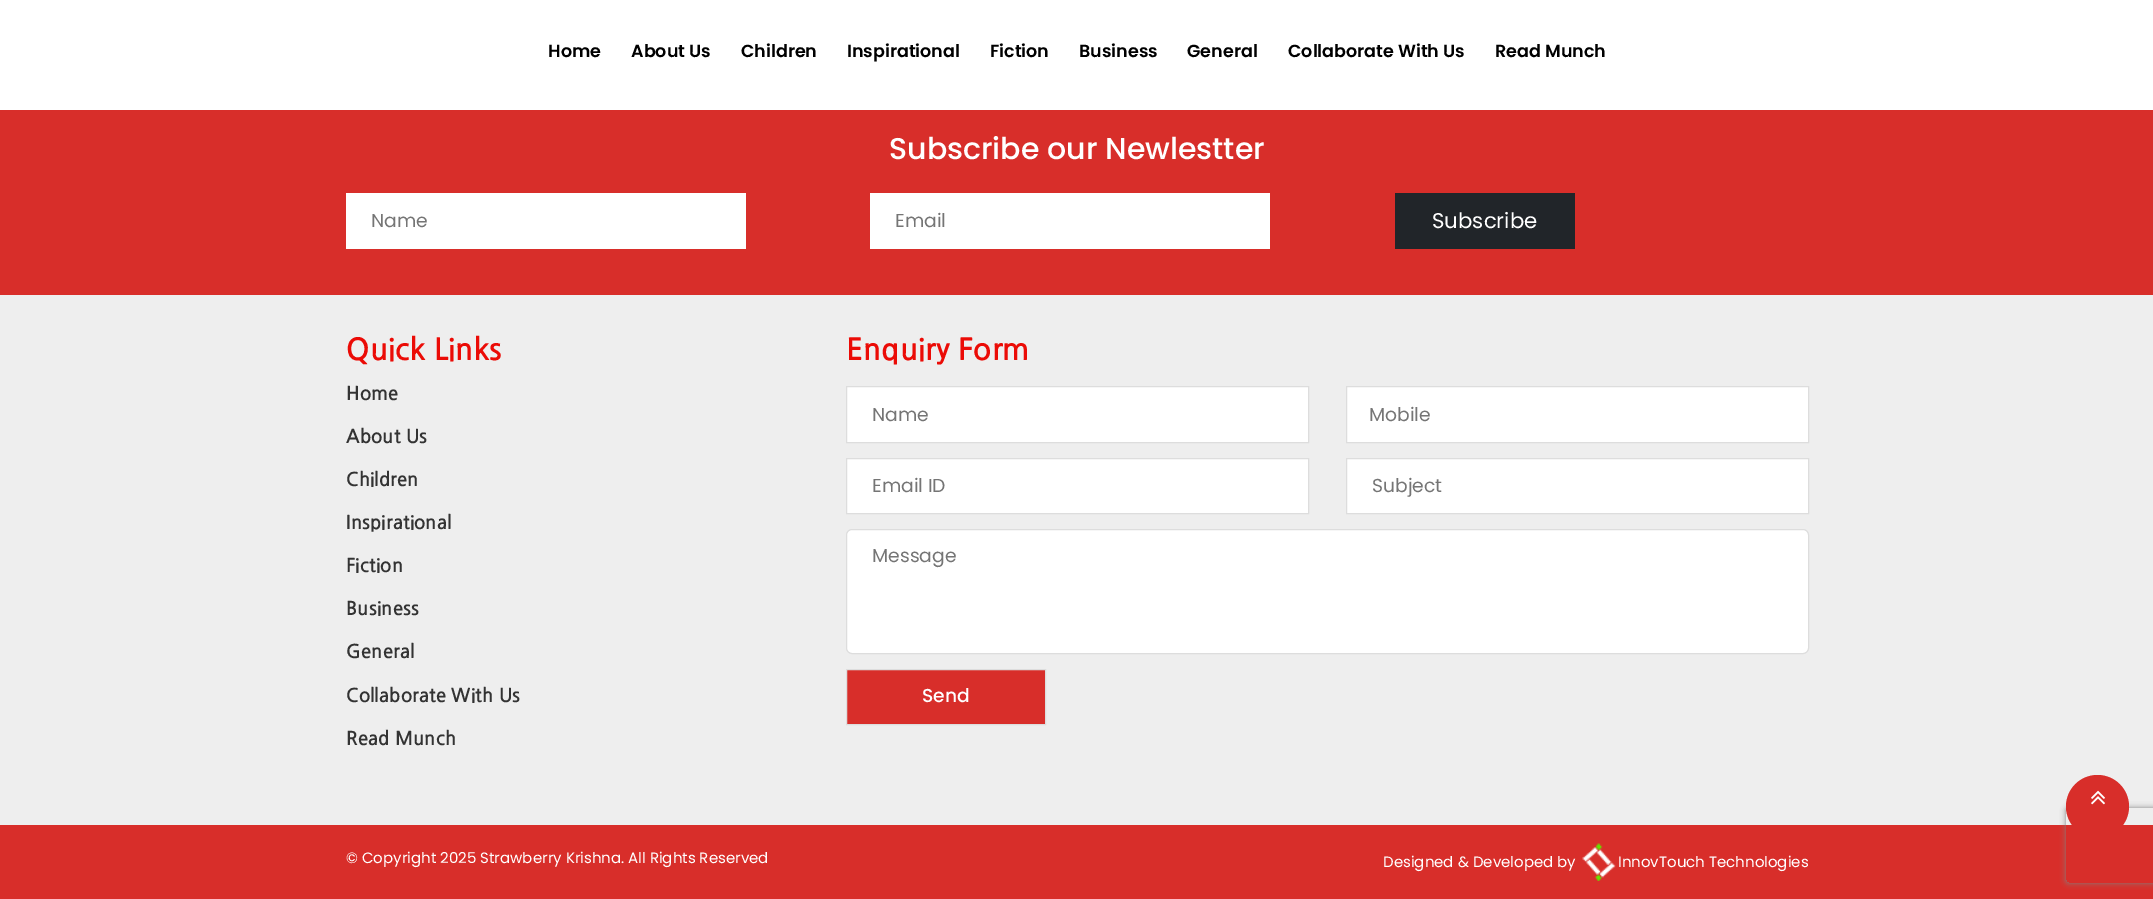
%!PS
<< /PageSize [2153 899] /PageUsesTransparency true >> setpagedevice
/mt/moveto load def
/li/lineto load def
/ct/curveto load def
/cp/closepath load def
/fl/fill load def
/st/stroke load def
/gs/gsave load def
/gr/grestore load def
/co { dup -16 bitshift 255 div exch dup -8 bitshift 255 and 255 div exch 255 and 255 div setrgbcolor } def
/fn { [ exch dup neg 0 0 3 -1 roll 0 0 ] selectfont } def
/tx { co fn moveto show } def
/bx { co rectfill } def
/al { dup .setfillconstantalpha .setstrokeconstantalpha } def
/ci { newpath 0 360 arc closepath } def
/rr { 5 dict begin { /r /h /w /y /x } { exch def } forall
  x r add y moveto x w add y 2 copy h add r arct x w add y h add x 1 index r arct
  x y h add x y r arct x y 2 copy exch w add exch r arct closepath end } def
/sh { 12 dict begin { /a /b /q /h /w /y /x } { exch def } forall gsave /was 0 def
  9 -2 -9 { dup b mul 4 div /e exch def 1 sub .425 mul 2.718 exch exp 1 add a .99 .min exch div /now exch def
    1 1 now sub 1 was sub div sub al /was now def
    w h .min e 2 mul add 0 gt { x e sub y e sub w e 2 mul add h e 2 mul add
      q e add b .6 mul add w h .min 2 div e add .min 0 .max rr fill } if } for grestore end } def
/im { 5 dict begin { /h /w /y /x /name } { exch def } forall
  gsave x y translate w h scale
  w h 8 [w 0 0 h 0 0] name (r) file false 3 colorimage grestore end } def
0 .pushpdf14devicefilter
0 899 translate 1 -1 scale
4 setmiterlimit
0 0 2153 899 16#FFFFFF bx
0 110 2153 185 16#D82E2A bx
346 193 400 56 16#FFFFFF bx
870 193 400 56 16#FFFFFF bx
1395 193 180 56 16#212529 bx
0 295 2153 530 16#EEEEEE bx
16#FFFFFF co
846.5 386.5 mt 1308.5 386.5 li 1308.5 442.5 li 846.5 442.5 li cp gs fl gr
16#DDDDDD co
st
16#FFFFFF co
846.5 458.5 mt 1308.5 458.5 li 1308.5 513.5 li 846.5 513.5 li cp gs fl gr
16#DDDDDD co
st
16#FFFFFF co
1346.5 386.5 mt 1808.5 386.5 li 1808.5 442.5 li 1346.5 442.5 li cp gs fl gr
16#DDDDDD co
st
16#FFFFFF co
1346.5 458.5 mt 1808.5 458.5 li 1808.5 513.5 li 1346.5 513.5 li cp gs fl gr
16#DDDDDD co
st
16#FFFFFF co
846.5 529.5 962 124 5.5 rr gs fl gr
16#DDDDDD co
st
16#D82E2A co
846.5 669.5 mt 1045.5 669.5 li 1045.5 724.5 li 846.5 724.5 li cp gs fl gr
16#DDDDDD co
st
0 825 2153 74 16#D82E2A bx
(media/1.raw) 1582 843 34 38 im
gs
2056 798 mt 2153 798 li 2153 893 li 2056 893 li cp 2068.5 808 mt 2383.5 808 li 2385 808 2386 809 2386 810.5 ct 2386 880.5 li 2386 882 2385 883 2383.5 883 ct 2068.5 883 li 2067 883 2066 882 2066 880.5 ct 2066 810.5 li 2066 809 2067 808 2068.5 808 ct cp eoclip newpath
16#808080 co
2066 808 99 75 2.5 3 1 sh
gr
2097.5 806.5 31.5 ci fl
(media/2.raw) 2091 790 14 15 im
(Home) 548 57 /Poppins-SemiBold 17.5 16#000000 tx
(About Us) 631 57 /Poppins-SemiBold 17.5 16#000000 tx
(Children) 741 57 /Poppins-SemiBold 17.5 16#000000 tx
(Inspirational) 847 57 /Poppins-SemiBold 17.5 16#000000 tx
(Fiction) 990 57 /Poppins-SemiBold 17.5 16#000000 tx
(Business) 1079 57 /Poppins-SemiBold 17.5 16#000000 tx
(General) 1187 57 /Poppins-SemiBold 17.5 16#000000 tx
(Collaborate With Us) 1288 57 /Poppins-SemiBold 17.5 16#000000 tx
(Read Munch) 1495 57 /Poppins-SemiBold 17.5 16#000000 tx
(Subscribe our Newlestter) 889 159 /Poppins-Medium 30 16#FFFFFF tx
(Name) 371 227 /Poppins-Regular 18.75 16#757575 tx
(Email) 895 227 /Poppins-Regular 18.75 16#757575 tx
(Subscribe) 1432 228 /Poppins-Regular 21.25 16#FFFFFF tx
(Quick Links) 346 360 /NanumGothic-Bold 30 16#EB0B06 tx
(Home) 346 400 /NanumGothic-Bold 18.75 16#333333 tx
(About Us) 346 443 /NanumGothic-Bold 18.75 16#333333 tx
(Children) 346 486 /NanumGothic-Bold 18.75 16#333333 tx
(Inspirational) 346 529 /NanumGothic-Bold 18.75 16#333333 tx
(Fiction) 346 572 /NanumGothic-Bold 18.75 16#333333 tx
(Business) 346 615 /NanumGothic-Bold 18.75 16#333333 tx
(General) 346 658 /NanumGothic-Bold 18.75 16#333333 tx
(Collaborate With Us) 346 702 /NanumGothic-Bold 18.75 16#333333 tx
(Read Munch) 346 745 /NanumGothic-Bold 18.75 16#333333 tx
(Enquiry Form) 846 360 /NanumGothic-Bold 30 16#EB0B06 tx
(Name) 872 421 /Poppins-Regular 18.75 16#757575 tx
(Email ID) 872 492 /Poppins-Regular 18.75 16#757575 tx
(Mobile) 1369 421 /Poppins-Regular 18.75 16#757575 tx
(Subject) 1372 492 /Poppins-Regular 18.75 16#757575 tx
(Message) 872 562 /Poppins-Regular 18.75 16#757575 tx
(Send) 922 702 /Poppins-Medium 18.75 16#FFFFFF tx
(© Copyright 2025 Strawberry Krishna. All Rights Reserved) 346 863 /Poppins-Regular 15 16#FFFFFF tx
(Designed & Developed by) 1383 867 /Poppins-Regular 15 16#FFFFFF tx
(InnovTouch Technologies) 1618 867 /Poppins-Regular 15 16#FFFFFF tx
.poppdf14devicefilter showpage
